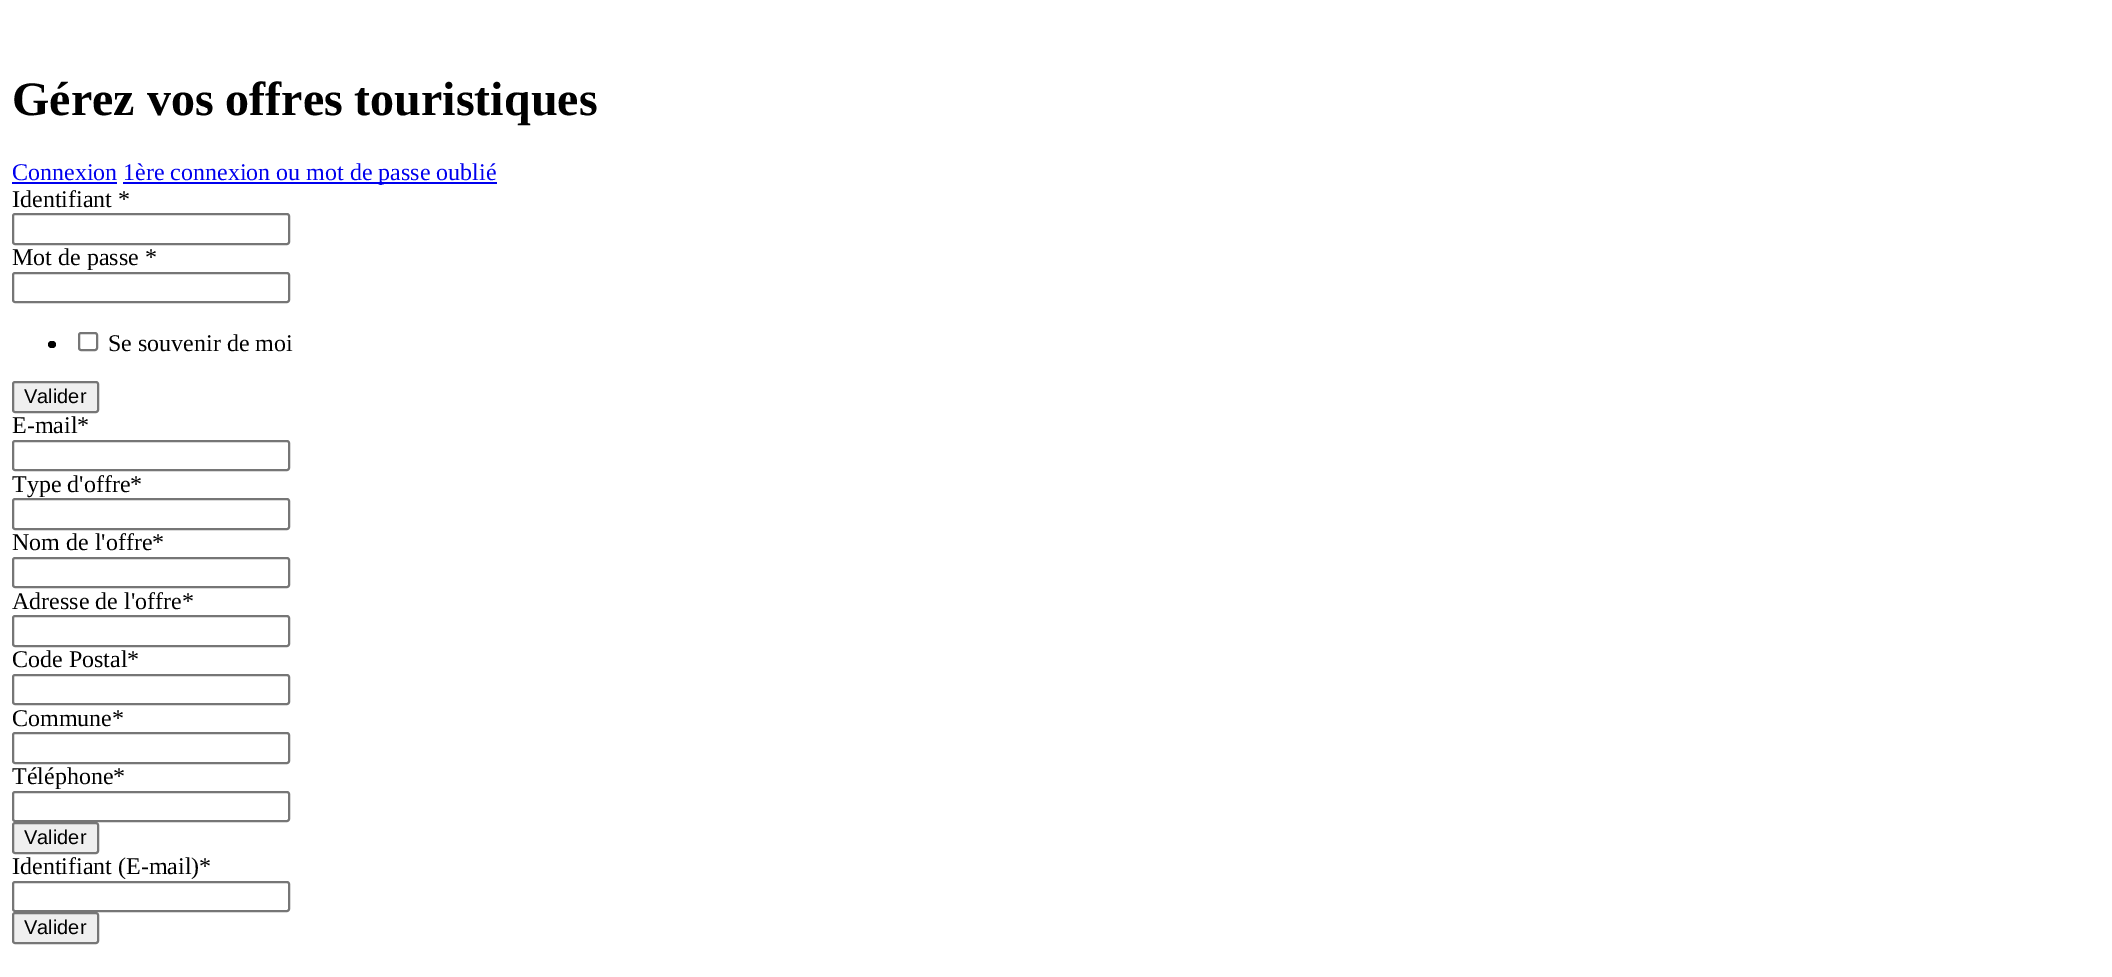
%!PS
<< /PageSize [2112 977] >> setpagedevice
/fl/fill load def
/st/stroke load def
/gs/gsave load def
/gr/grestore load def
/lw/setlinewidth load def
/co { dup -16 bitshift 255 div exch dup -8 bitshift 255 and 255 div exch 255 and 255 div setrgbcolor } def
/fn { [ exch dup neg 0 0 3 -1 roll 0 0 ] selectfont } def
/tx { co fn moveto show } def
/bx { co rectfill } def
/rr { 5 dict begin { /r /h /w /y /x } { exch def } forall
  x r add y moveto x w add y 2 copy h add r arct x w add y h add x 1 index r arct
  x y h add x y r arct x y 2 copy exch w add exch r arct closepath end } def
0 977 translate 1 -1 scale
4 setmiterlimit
0 0 2112 977 16#FFFFFF bx
12 182 105 2 16#0000EE bx
123 182 374 2 16#0000EE bx
16#767676 co
2 lw
13 214 276 30 2 rr st
13 273 276 29 2 rr st
16#000000 co
48 341 8 7 3.5 rr fl
16#767676 co
79 333 18 17 2 rr st
16#EFEFEF co
13 382 85 30 2 rr gs fl gr
16#767676 co
st
13 441 276 29 2 rr st
13 499 276 30 2 rr st
13 558 276 29 2 rr st
13 616 276 30 2 rr st
13 675 276 29 2 rr st
13 733 276 30 2 rr st
13 792 276 29 2 rr st
16#EFEFEF co
13 823 85 30 2 rr gs fl gr
16#767676 co
st
13 882 276 29 2 rr st
16#EFEFEF co
13 913 85 30 2 rr gs fl gr
16#767676 co
st
(Gérez vos offres touristiques) 12 115 /LiberationSerif-Bold 48 16#000000 tx
(Connexion) 12 180 /LiberationSerif-Regular 24 16#0000EE tx
(1ère connexion ou mot de passe oublié) 123 180 /LiberationSerif-Regular 24 16#0000EE tx
(Identifiant *) 12 207 /LiberationSerif-Regular 24 16#000000 tx
(Mot de passe *) 12 265 /LiberationSerif-Regular 24 16#000000 tx
(Se souvenir de moi) 108 351 /LiberationSerif-Regular 24 16#000000 tx
(Valider) 24 403 /LiberationSans-Regular 20 16#000000 tx
(E-mail*) 12 433 /LiberationSerif-Regular 24 16#000000 tx
(Type d'offre*) 12 492 /LiberationSerif-Regular 24 16#000000 tx
(Nom de l'offre*) 12 550 /LiberationSerif-Regular 24 16#000000 tx
(Adresse de l'offre*) 12 609 /LiberationSerif-Regular 24 16#000000 tx
(Code Postal*) 12 667 /LiberationSerif-Regular 24 16#000000 tx
(Commune*) 12 726 /LiberationSerif-Regular 24 16#000000 tx
(Téléphone*) 12 784 /LiberationSerif-Regular 24 16#000000 tx
(Valider) 24 844 /LiberationSans-Regular 20 16#000000 tx
(Identifiant \(E-mail\)*) 12 874 /LiberationSerif-Regular 24 16#000000 tx
(Valider) 24 934 /LiberationSans-Regular 20 16#000000 tx
showpage
